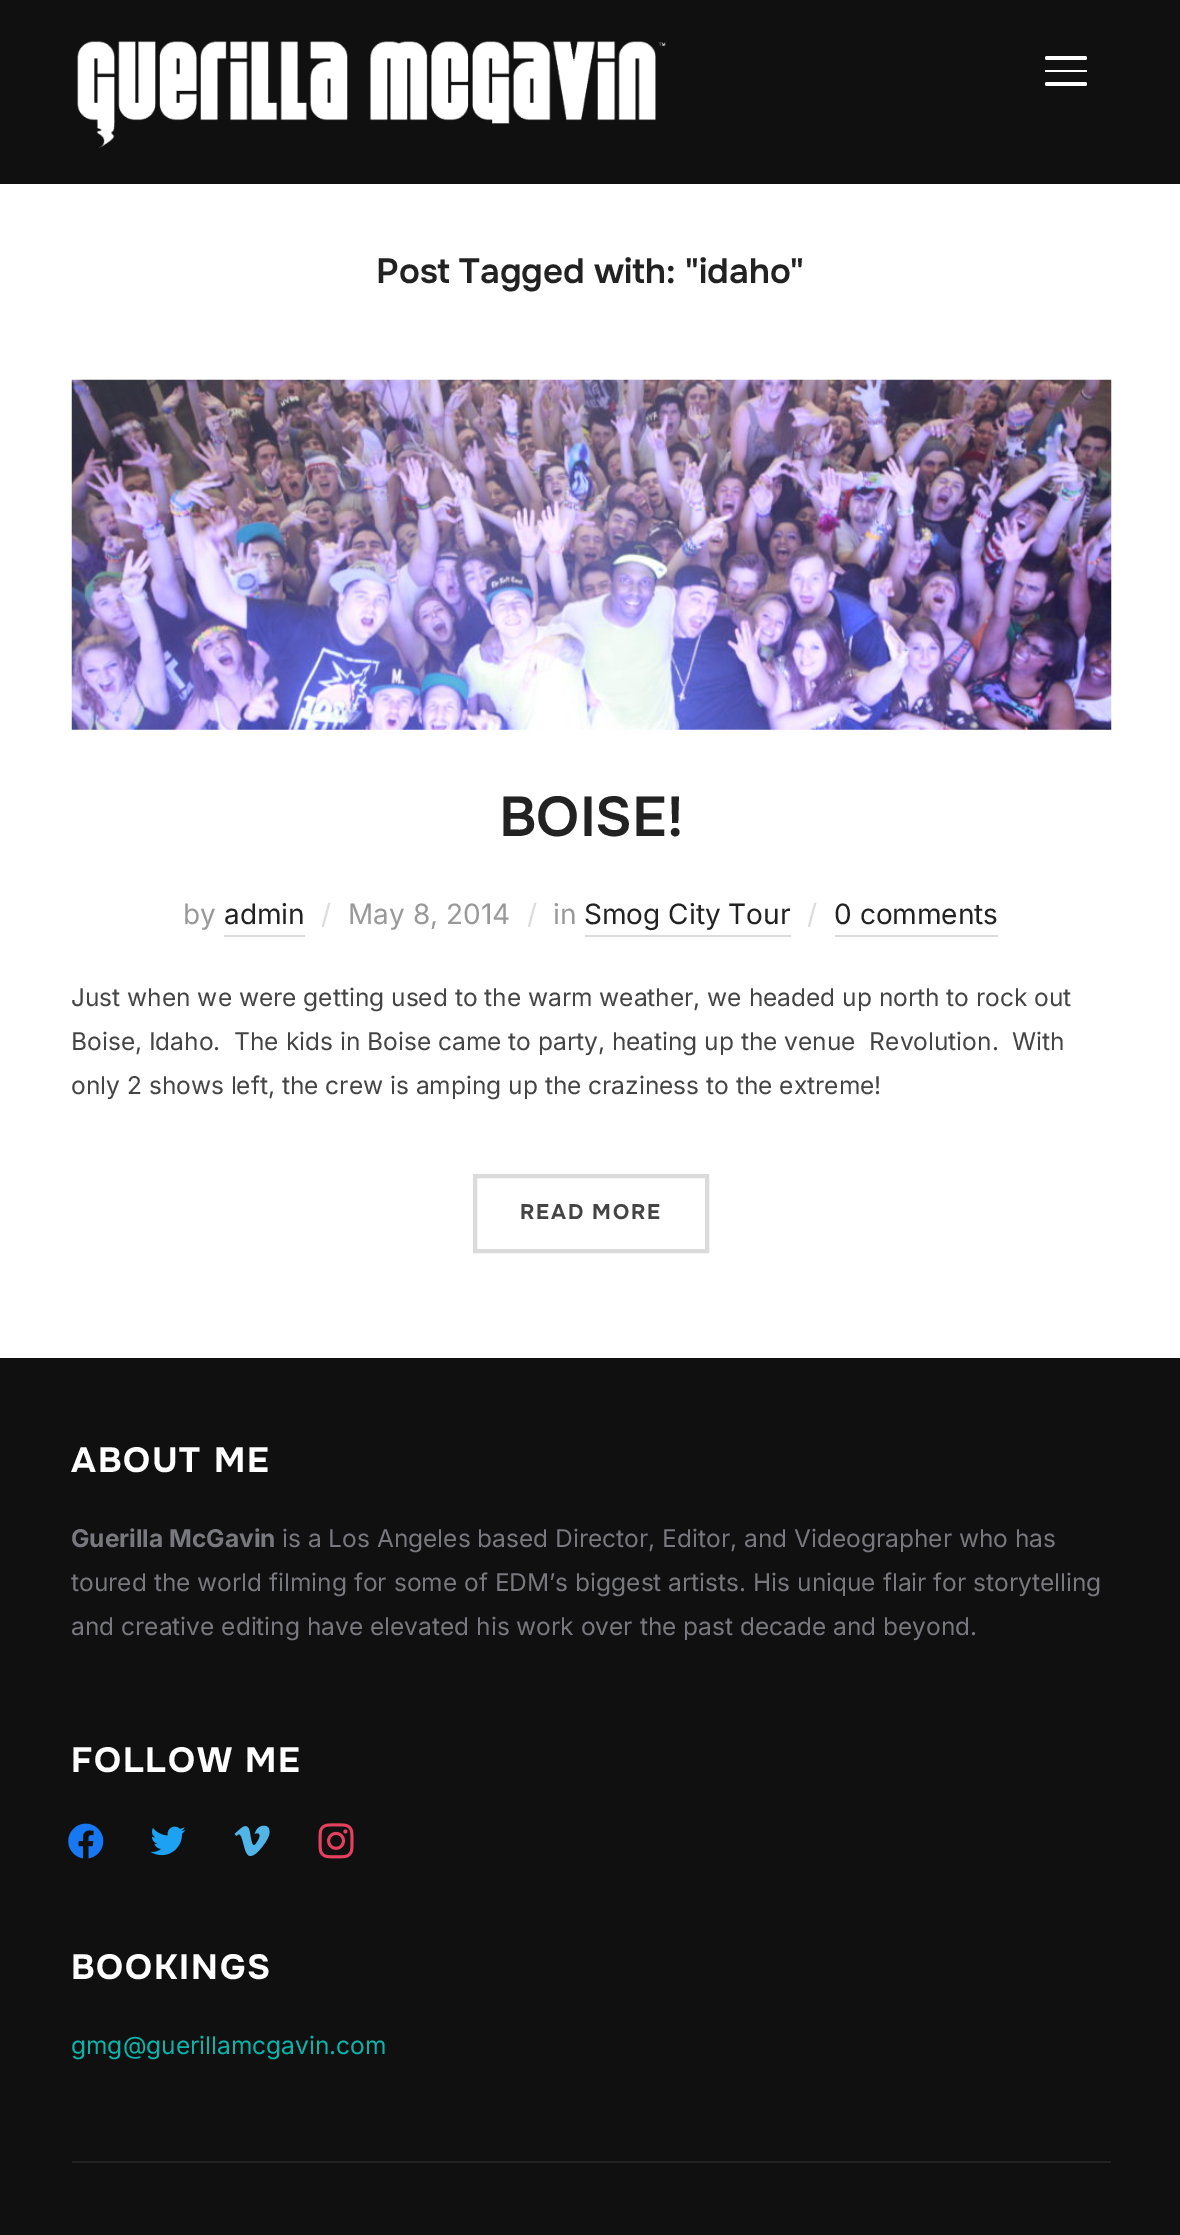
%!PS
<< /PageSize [1180 2235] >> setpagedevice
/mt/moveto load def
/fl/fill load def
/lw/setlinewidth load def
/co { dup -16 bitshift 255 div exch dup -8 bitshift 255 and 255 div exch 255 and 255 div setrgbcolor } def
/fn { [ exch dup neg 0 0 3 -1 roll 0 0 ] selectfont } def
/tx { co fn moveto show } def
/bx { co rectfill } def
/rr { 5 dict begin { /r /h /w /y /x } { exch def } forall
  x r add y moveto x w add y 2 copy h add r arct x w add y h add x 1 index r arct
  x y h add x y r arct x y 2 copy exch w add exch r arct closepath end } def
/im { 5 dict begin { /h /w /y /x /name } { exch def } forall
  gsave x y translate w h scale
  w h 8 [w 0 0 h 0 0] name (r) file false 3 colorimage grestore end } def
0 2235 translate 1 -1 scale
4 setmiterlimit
0 0 1180 2235 16#FFFFFF bx
0 0 1180 184 16#101010 bx
(media/1.raw) 77 41 589 107 im
16#FFFFFF co
1045 56 42 4 2 rr fl
1045 70 42 2 1 rr fl
1045 82 42 4 2 rr fl
(media/2.raw) 71 379 1041 351 im
224 935 81 2 16#DBDBDB bx
585 935 206 2 16#DBDBDB bx
835 935 163 2 16#DBDBDB bx
4 lw
475 1176 232 75 rectstroke
0 1358 1180 877 16#101010 bx
(media/3.raw) 68 1823 36 36 im
(media/4.raw) 150 1826 36 30 im
(media/5.raw) 234 1825 36 32 im
(media/6.raw) 318 1823 36 36 im
72 2161 1039 2 16#232323 bx
/Onest-SemiBold 35 fn
16#222222 co
376 283 mt -.5 0 32 (Post Tagged with: "idaho") widthshow
(BOISE!) 499 836 /Onest-SemiBold 56 16#222222 tx
(by) 183 924 /Inter-Regular 28 16#999999 tx
(admin) 224 924 /Inter-Regular 28 16#222222 tx
(/) 321 924 /Inter-Regular 28 16#DBDDDD tx
(May 8, 2014) 348 924 /Inter-Regular 28 16#999999 tx
(/) 527 924 /Inter-Regular 28 16#DBDDDD tx
(in) 553 924 /Inter-Regular 28 16#999999 tx
(Smog City Tour) 584 924 /Inter-Regular 28 16#222222 tx
(/) 807 924 /Inter-Regular 28 16#DBDDDD tx
(0 comments) 834 924 /Inter-Regular 28 16#222222 tx
(Just when we were getting used to the warm weather, we headed up north to rock out) 71 1006 /Inter-Regular 24.5 16#444444 tx
(Boise, Idaho.  The kids in Boise came to party, heating up the venue  Revolution.  With) 71 1050 /Inter-Regular 24.5 16#444444 tx
(only 2 shows left, the crew is amping up the craziness to the extreme!) 71 1094 /Inter-Regular 24.5 16#444444 tx
/Onest-Bold 21 fn
520 1219 mt 1.75 0 (READ MORE) ashow
/Onest-Bold 35 fn
16#FFFFFF co
71 1472 mt 1.75 0 (ABOUT ME) ashow
(Guerilla McGavin) 71 1547 /Inter-Bold 24.5 16#78787F tx
(is a Los Angeles based Director, Editor, and Videographer who has) 282 1547 /Inter-Regular 24.5 16#78787F tx
(toured the world filming for some of EDM’s biggest artists. His unique flair for storytelling) 71 1591 /Inter-Regular 24.5 16#78787F tx
(and creative editing have elevated his work over the past decade and beyond.) 71 1635 /Inter-Regular 24.5 16#78787F tx
/Onest-Bold 35 fn
16#FFFFFF co
71 1772 mt 1.75 0 (FOLLOW ME) ashow
71 1979 mt 1.75 0 (BOOKINGS) ashow
(gmg@guerillamcgavin.com) 71 2054 /Inter-Regular 24.5 16#0BB4AA tx
showpage
